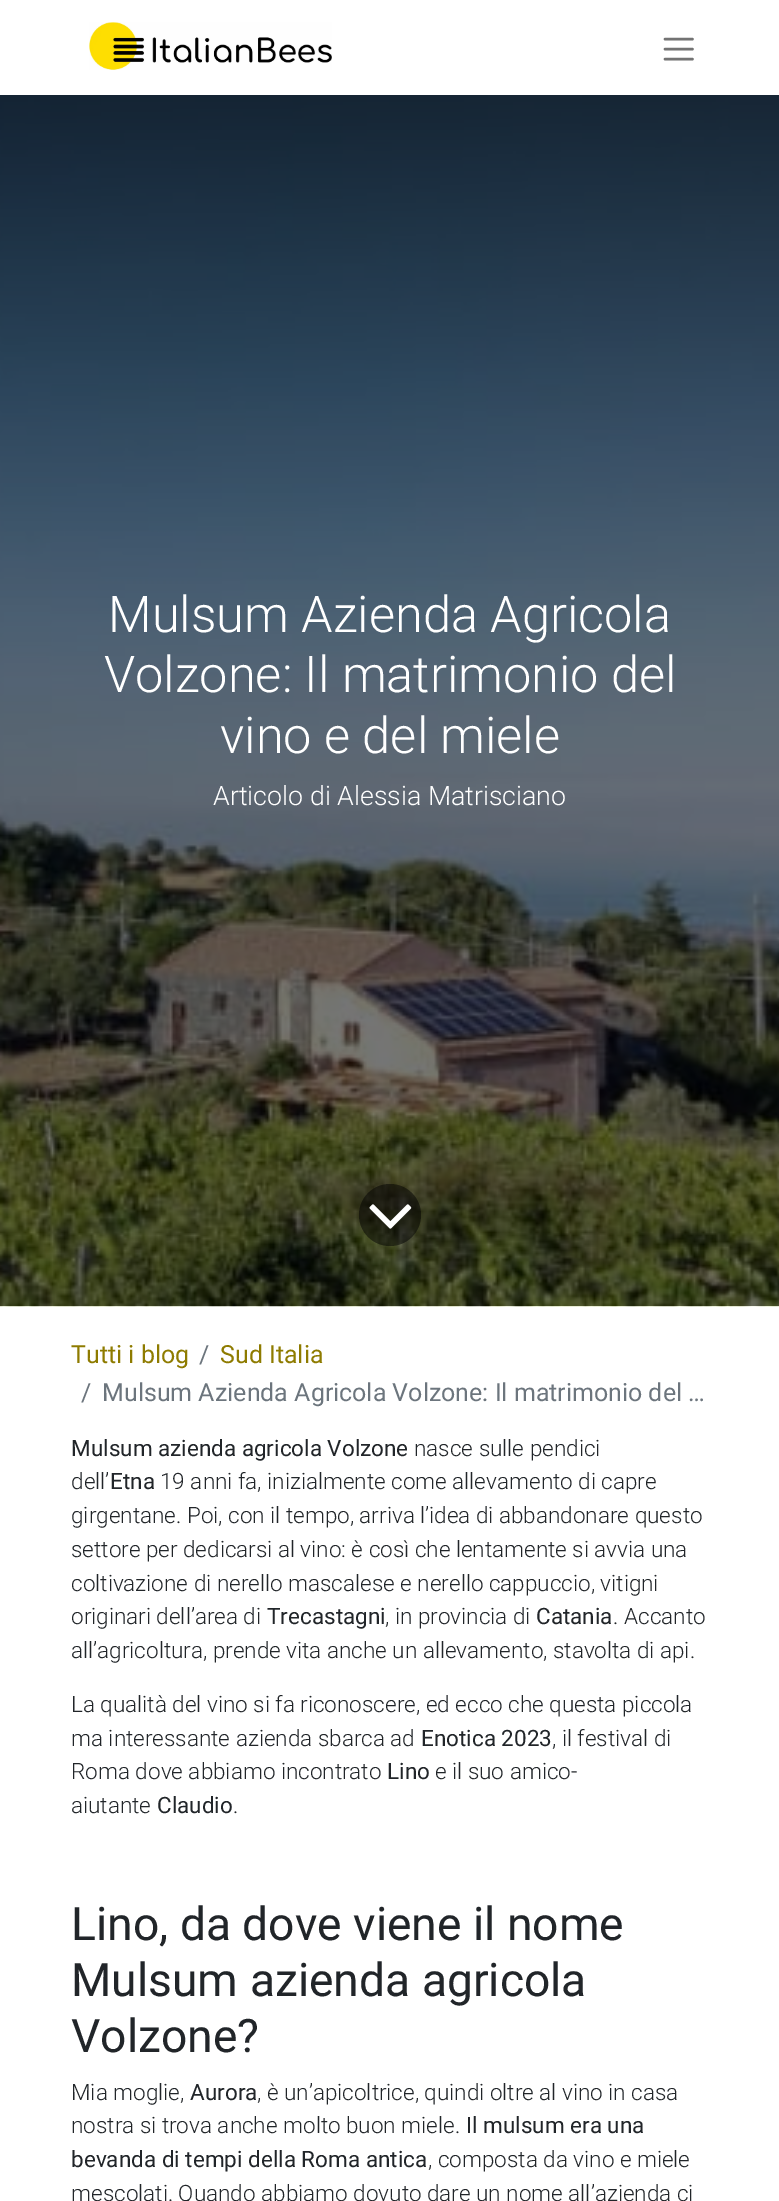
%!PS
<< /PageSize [779 2201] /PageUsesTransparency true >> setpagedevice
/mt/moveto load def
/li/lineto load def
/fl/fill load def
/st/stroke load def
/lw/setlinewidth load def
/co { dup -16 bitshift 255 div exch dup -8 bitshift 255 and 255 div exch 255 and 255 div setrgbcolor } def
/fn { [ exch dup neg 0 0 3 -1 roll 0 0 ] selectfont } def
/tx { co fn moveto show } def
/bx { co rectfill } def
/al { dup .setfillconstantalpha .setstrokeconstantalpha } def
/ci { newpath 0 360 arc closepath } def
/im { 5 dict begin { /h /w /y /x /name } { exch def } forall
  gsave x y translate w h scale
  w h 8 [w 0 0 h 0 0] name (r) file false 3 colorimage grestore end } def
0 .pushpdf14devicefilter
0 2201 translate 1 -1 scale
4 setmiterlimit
0 0 779 2201 16#FFFFFF bx
(media/1.raw) 89 22 243 48 im
16#737373 co
2.5 lw
1 setlinecap
665 39 mt 692.5 39 li 665 49 mt 692.5 49 li 665 59 mt 692.5 59 li st
(media/2.raw) 0 95 779 1212 im
0.5 al
16#000000 co
390 1215 31 ci fl
1 al
(media/3.raw) 369 1204 43 25 im
(Mulsum Azienda Agricola) 108 632 /Roboto-Light 50.5 16#FFFFFF tx
(Volzone: Il matrimonio del) 104 692 /Roboto-Light 50.5 16#FFFFFF tx
(vino e del miele) 220 753 /Roboto-Light 50.5 16#FFFFFF tx
(Articolo di Alessia Matrisciano) 213 805 /Roboto-Light 26.75 16#FFFFFF tx
(Tutti i blog) 71 1363 /Roboto-Regular 25 16#8E7B00 tx
(/) 199 1363 /Roboto-Regular 25 16#6C757D tx
(Sud Italia) 220 1363 /Roboto-Regular 25 16#8E7B00 tx
(/) 81 1401 /Roboto-Regular 25 16#6C757D tx
(Mulsum Azienda Agricola Volzone: Il matrimonio del …) 102 1401 /Roboto-Regular 25 16#6C757D tx
(Mulsum azienda agricola Volzone) 71 1456 /Roboto-Regular 22.5 16#212529 tx
(nasce sulle pendici) 414 1456 /Roboto-Light 22.5 16#212529 tx
(dell’) 71 1489 /Roboto-Light 22.5 16#212529 tx
(Etna) 110 1489 /Roboto-Regular 22.5 16#212529 tx
(19 anni fa, inizialmente come allevamento di capre) 160 1489 /Roboto-Light 22.5 16#212529 tx
(girgentane. Poi, con il tempo, arriva l’idea di abbandonare questo) 71 1523 /Roboto-Light 22.5 16#212529 tx
(settore per dedicarsi al vino: è così che lentamente si avvia una) 71 1557 /Roboto-Light 22.5 16#212529 tx
(coltivazione di nerello mascalese e nerello cappuccio, vitigni) 71 1591 /Roboto-Light 22.5 16#212529 tx
(originari dell’area di) 71 1624 /Roboto-Light 22.5 16#212529 tx
(Trecastagni) 267 1624 /Roboto-Regular 22.5 16#212529 tx
(, in provincia di) 385 1624 /Roboto-Light 22.5 16#212529 tx
(Catania) 536 1624 /Roboto-Regular 22.5 16#212529 tx
(. Accanto) 613 1624 /Roboto-Light 22.5 16#212529 tx
(all’agricoltura, prende vita anche un allevamento, stavolta di api.) 71 1658 /Roboto-Light 22.5 16#212529 tx
(La qualità del vino si fa riconoscere, ed ecco che questa piccola) 71 1712 /Roboto-Light 22.5 16#212529 tx
(ma interessante azienda sbarca ad) 71 1746 /Roboto-Light 22.5 16#212529 tx
(Enotica 2023) 421 1746 /Roboto-Regular 22.5 16#212529 tx
(, il festival di) 552 1746 /Roboto-Light 22.5 16#212529 tx
(Roma dove abbiamo incontrato) 71 1779 /Roboto-Light 22.5 16#212529 tx
(Lino) 387 1779 /Roboto-Regular 22.5 16#212529 tx
(e il suo amico-) 435 1779 /Roboto-Light 22.5 16#212529 tx
(aiutante) 71 1813 /Roboto-Light 22.5 16#212529 tx
(Claudio) 157 1813 /Roboto-Regular 22.5 16#212529 tx
(.) 233 1813 /Roboto-Light 22.5 16#212529 tx
(Lino, da dove viene il nome) 71 1940 /Roboto-Regular 46.25 16#212529 tx
(Mulsum azienda agricola) 71 1996 /Roboto-Regular 46.25 16#212529 tx
(Volzone?) 71 2052 /Roboto-Regular 46.25 16#212529 tx
(Mia moglie,) 71 2100 /Roboto-Light 22.5 16#212529 tx
(Aurora) 190 2100 /Roboto-Regular 22.5 16#212529 tx
(, è un’apicoltrice, quindi oltre al vino in casa) 257 2100 /Roboto-Light 22.5 16#212529 tx
(nostra si trova anche molto buon miele.) 71 2133 /Roboto-Light 22.5 16#212529 tx
(Il mulsum era una) 466 2133 /Roboto-Regular 22.5 16#212529 tx
(bevanda di tempi della Roma antica) 71 2167 /Roboto-Regular 22.5 16#212529 tx
(, composta da vino e miele) 428 2167 /Roboto-Light 22.5 16#212529 tx
(mescolati. Quando abbiamo dovuto dare un nome all’azienda ci) 71 2201 /Roboto-Light 22.5 16#212529 tx
.poppdf14devicefilter showpage
